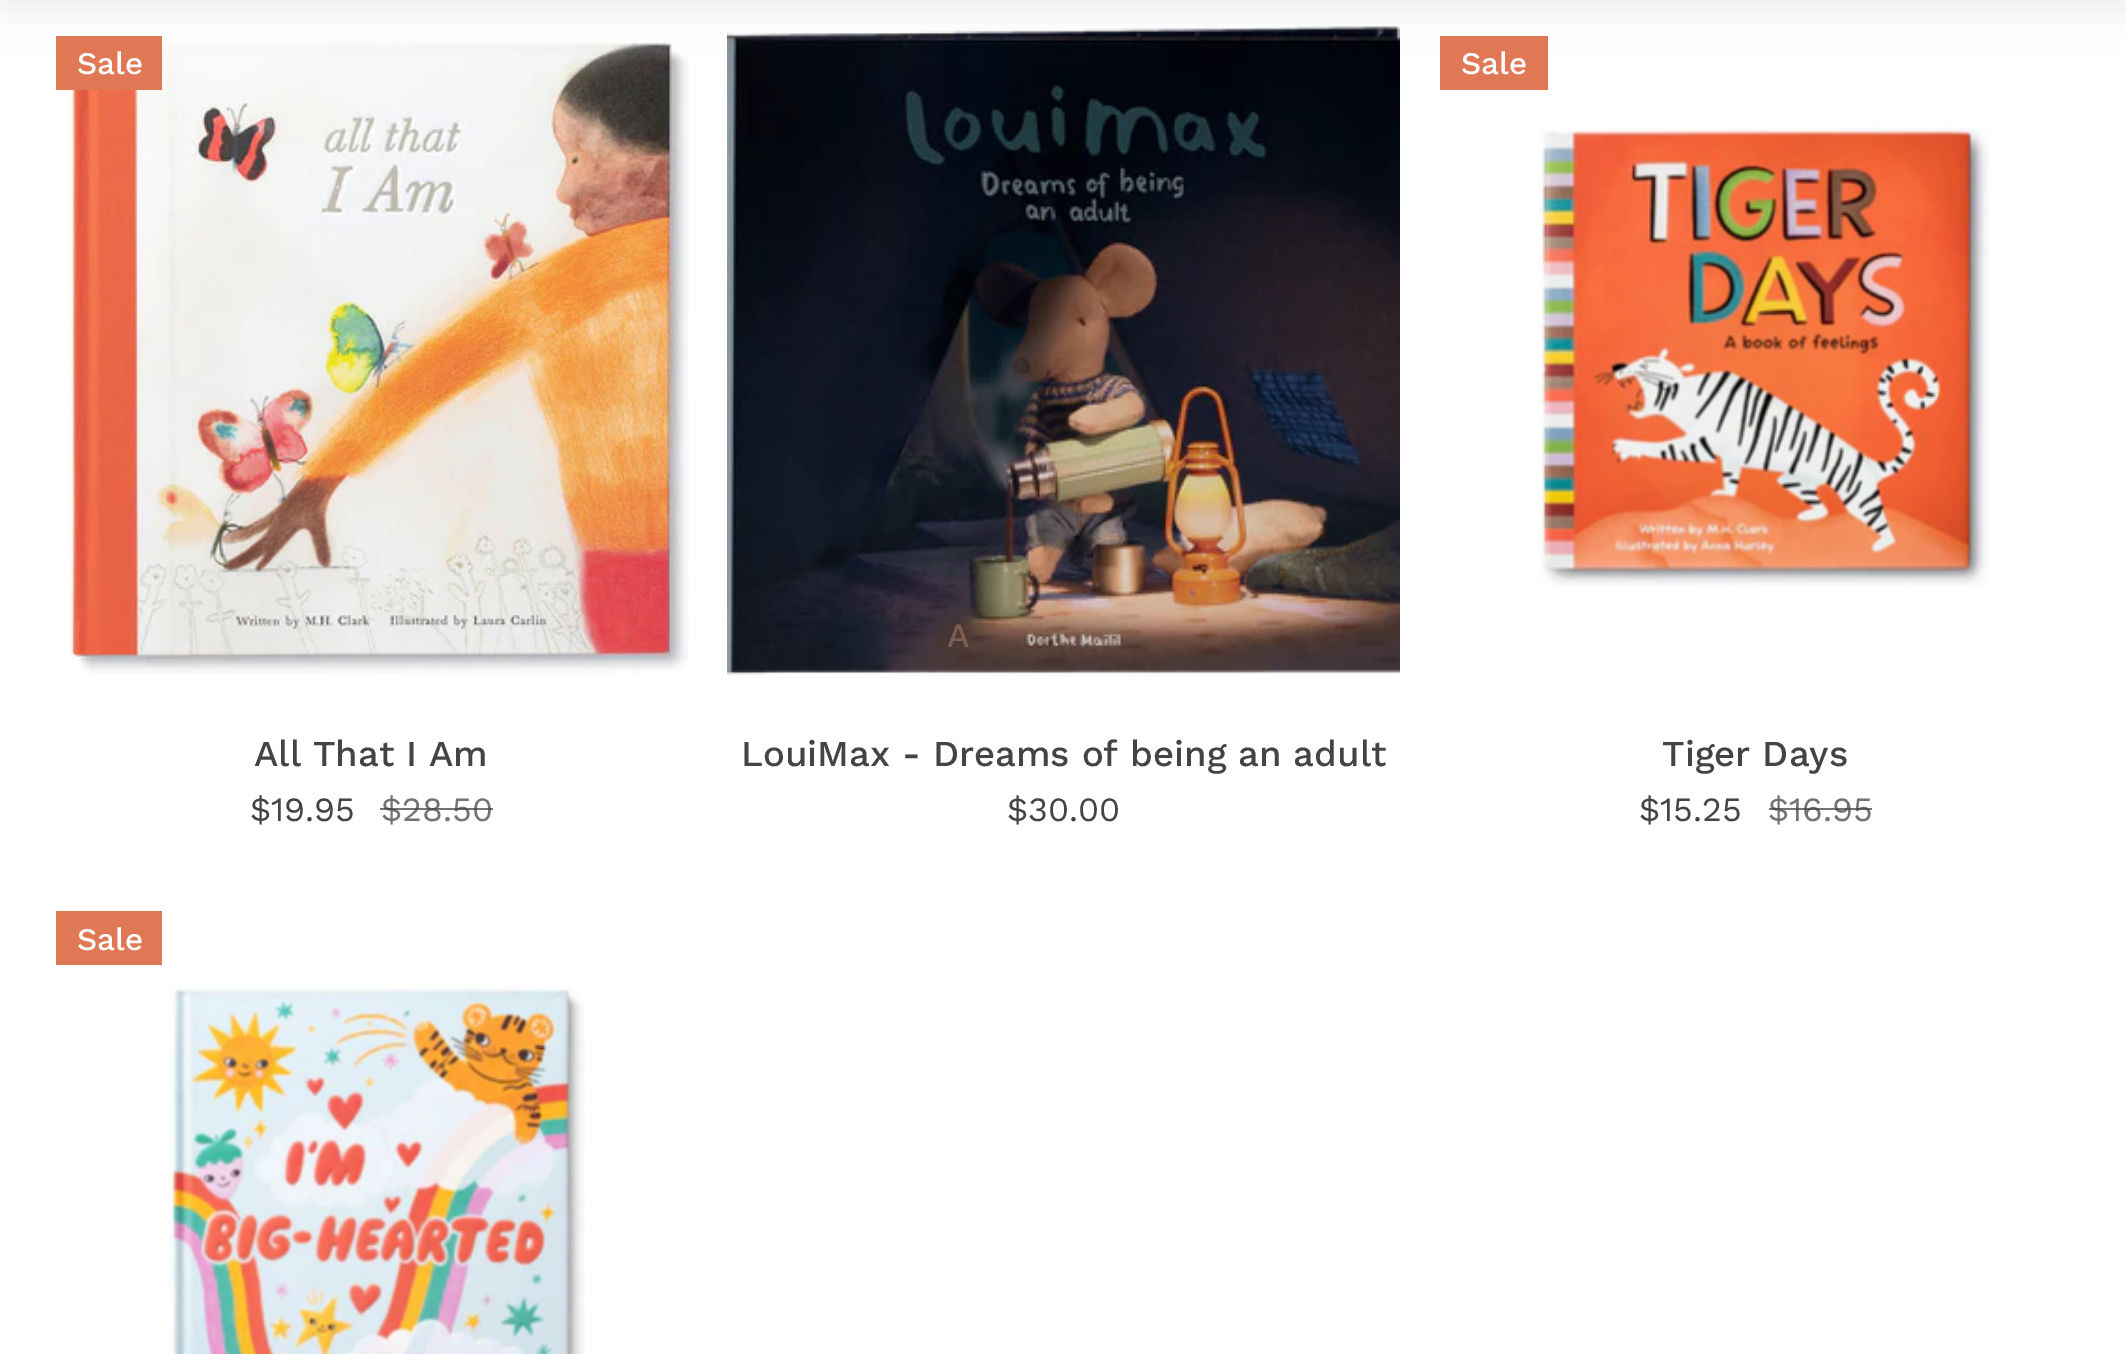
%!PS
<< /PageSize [2126 1354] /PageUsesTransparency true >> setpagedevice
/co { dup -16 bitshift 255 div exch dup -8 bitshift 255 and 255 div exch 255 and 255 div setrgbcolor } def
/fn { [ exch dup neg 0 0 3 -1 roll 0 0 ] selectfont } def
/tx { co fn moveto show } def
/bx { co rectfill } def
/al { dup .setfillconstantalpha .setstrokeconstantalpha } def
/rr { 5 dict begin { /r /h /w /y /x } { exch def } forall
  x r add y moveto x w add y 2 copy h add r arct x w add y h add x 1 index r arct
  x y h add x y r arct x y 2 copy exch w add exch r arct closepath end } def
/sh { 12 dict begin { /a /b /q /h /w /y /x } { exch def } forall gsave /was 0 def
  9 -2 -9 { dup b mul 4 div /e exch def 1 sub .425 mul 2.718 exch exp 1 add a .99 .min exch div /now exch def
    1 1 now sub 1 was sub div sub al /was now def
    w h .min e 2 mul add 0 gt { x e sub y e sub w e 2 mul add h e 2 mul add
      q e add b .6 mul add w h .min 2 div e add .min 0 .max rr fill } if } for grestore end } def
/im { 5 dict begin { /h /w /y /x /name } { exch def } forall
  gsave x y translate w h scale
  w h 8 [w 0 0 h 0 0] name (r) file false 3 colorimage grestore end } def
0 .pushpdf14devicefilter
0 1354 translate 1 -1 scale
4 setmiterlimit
0 0 2126 1354 16#FFFFFF bx
(media/1.raw) 69 41 620 633 im
56 36 106 54 16#E17855 bx
(media/2.raw) 727 26 673 650 im
1440 36 108 54 16#E17855 bx
16#000000 co
0 -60 2126 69 0 20 .07 sh
(media/3.raw) 1537 127 453 460 im
56 911 106 54 16#E17855 bx
(media/4.raw) 168 984 417 370 im
(Sale) 77 74 /WorkSans-Medium 31.5 16#FFFFFF tx
(All That I Am) 254 766 /WorkSans-Medium 36.5 16#444444 tx
($19.95) 250 821 /WorkSans-Regular 34 16#444444 tx
($28.50) 381 821 /WorkSans-Regular 34 16#737373 tx
0.75 al
380 808 113 2 16#444444 bx
1 al
(A) 947 647 /WorkSans-Medium 34 16#7C5F52 tx
(LouiMax - Dreams of being an adult) 741 766 /WorkSans-Medium 36.5 16#444444 tx
($30.00) 1007 821 /WorkSans-Regular 34 16#444444 tx
(Sale) 1461 74 /WorkSans-Medium 31.5 16#FFFFFF tx
(Tiger Days) 1662 766 /WorkSans-Medium 36.5 16#444444 tx
($15.25) 1639 821 /WorkSans-Regular 34 16#444444 tx
($16.95) 1768 821 /WorkSans-Regular 34 16#737373 tx
0.75 al
1769 808 103 2 16#444444 bx
1 al
(Sale) 77 950 /WorkSans-Medium 31.5 16#FFFFFF tx
.poppdf14devicefilter showpage
